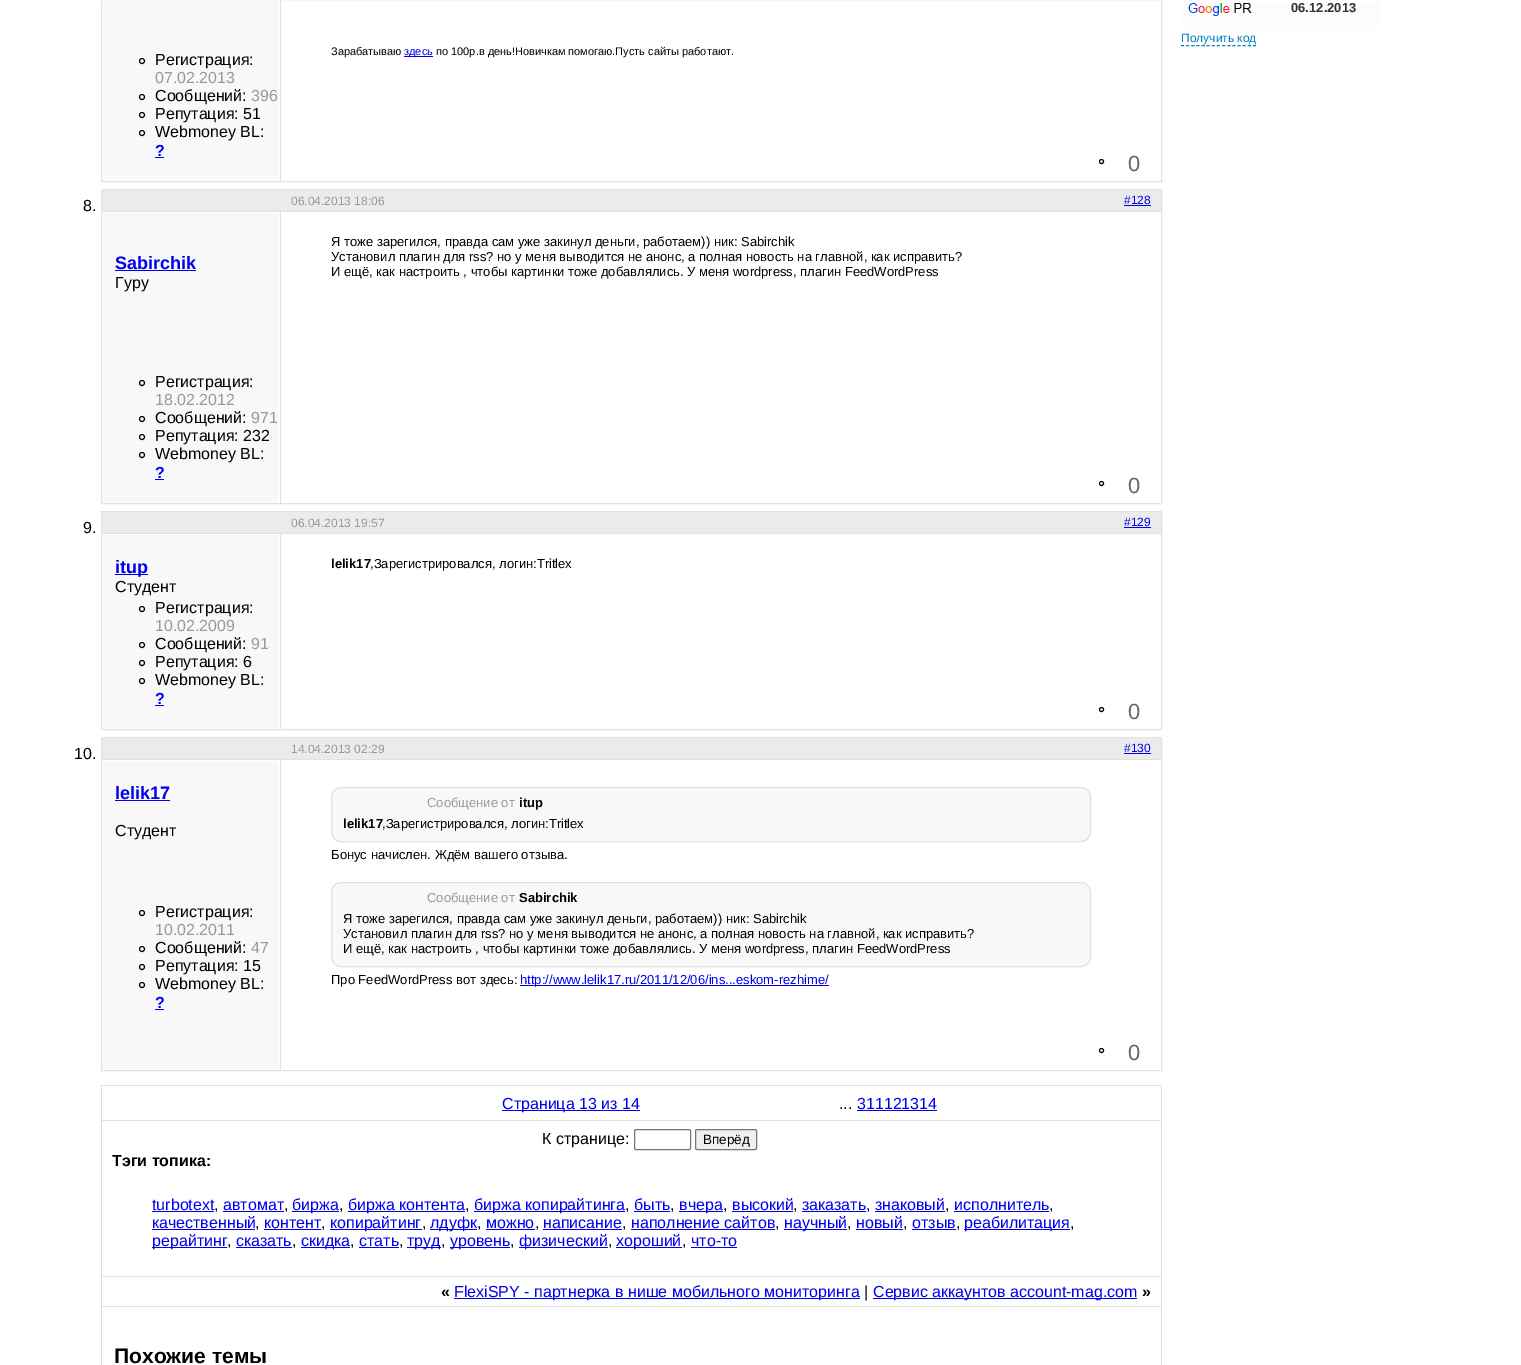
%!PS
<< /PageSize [1521 1365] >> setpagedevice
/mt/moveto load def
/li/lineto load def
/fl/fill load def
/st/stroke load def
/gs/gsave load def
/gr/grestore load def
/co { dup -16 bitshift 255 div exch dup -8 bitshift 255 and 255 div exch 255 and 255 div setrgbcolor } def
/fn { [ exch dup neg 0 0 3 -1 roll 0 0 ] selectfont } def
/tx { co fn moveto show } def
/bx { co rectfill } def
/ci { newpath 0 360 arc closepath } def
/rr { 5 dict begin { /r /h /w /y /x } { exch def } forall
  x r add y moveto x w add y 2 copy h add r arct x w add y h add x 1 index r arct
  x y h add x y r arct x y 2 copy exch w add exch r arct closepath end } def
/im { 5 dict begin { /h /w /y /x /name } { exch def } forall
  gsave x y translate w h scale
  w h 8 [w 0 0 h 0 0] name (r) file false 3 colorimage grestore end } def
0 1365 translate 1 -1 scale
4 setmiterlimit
0 0 1521 1365 16#FFFFFF bx
(media/1.raw) 1182 3 198 27 im
16#0182C4 co
[3 2.14] 0 setdash
1181 45.5 mt 1256 45.5 li st
1161 1085 1 280 16#DDDDDD bx
101 1085 1 280 16#DDDDDD bx
16#E1E1E1 co
[] 0 setdash
101.5 -.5 1060 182 rectstroke
280 0 1 181 16#E1E1E1 bx
404 56 29 1 16#0000EE bx
103 0 176 180 16#F8F8F8 bx
16#000000 co
142 61 2.5 ci st
142 97 2.5 ci st
142 115 2.5 ci st
142 133 2.5 ci st
155 157 9 1 16#0000EE bx
16#000000 co
1101.5 161.5 2 ci st
16#E1E1E1 co
101.5 189.5 1060 314 rectstroke
102 190 1059 21 16#EBEBEB bx
102 211 1059 1 16#E1E1E1 bx
1124 205 27 1 16#0000EE bx
103 213 176 289 16#F8F8F8 bx
115 270 81 1 16#0000EE bx
16#000000 co
142 383 2.5 ci st
142 419 2.5 ci st
142 437 2.5 ci st
142 455 2.5 ci st
155 479 9 1 16#0000EE bx
280 212 1 291 16#E1E1E1 bx
16#000000 co
1101.5 483.5 2 ci st
16#E1E1E1 co
101.5 511.5 1060 218 rectstroke
102 512 1059 21 16#EBEBEB bx
102 533 1059 1 16#E1E1E1 bx
1124 527 27 1 16#0000EE bx
103 535 176 193 16#F8F8F8 bx
115 574 33 1 16#0000EE bx
16#000000 co
142 609 2.5 ci st
142 645 2.5 ci st
142 663 2.5 ci st
142 681 2.5 ci st
155 705 9 1 16#0000EE bx
280 534 1 195 16#E1E1E1 bx
16#000000 co
1101.5 709.5 2 ci st
16#E1E1E1 co
101.5 737.5 1060 333 rectstroke
102 738 1059 21 16#EBEBEB bx
102 759 1059 1 16#E1E1E1 bx
1124 753 27 1 16#0000EE bx
103 761 176 308 16#F8F8F8 bx
115 800 55 1 16#0000EE bx
16#000000 co
142 913 2.5 ci st
142 949 2.5 ci st
142 967 2.5 ci st
142 985 2.5 ci st
155 1009 9 1 16#0000EE bx
280 760 1 310 16#E1E1E1 bx
16#F8F8F8 co
331.5 787.5 759 54 9.5 rr gs fl gr
16#E1E1E1 co
st
16#F8F8F8 co
331.5 882.5 759 84 9.5 rr gs fl gr
16#E1E1E1 co
st
520 985 309 1 16#0000EE bx
16#000000 co
1101.5 1050.5 2 ci st
102 1085 1059 1 16#E1E1E1 bx
102 1120 1059 1 16#E1E1E1 bx
502 1110 138 1 16#0000EE bx
857 1110 80 1 16#0000EE bx
16#767676 co
634.5 1129.5 56 20 1.5 rr st
16#EFEFEF co
695.5 1129.5 61 20 1.5 rr gs fl gr
16#767676 co
st
152 1211 62 1 16#0000EE bx
223 1211 61 1 16#0000EE bx
292 1211 47 1 16#0000EE bx
348 1211 117 1 16#0000EE bx
474 1211 151 1 16#0000EE bx
634 1211 36 1 16#0000EE bx
679 1211 44 1 16#0000EE bx
732 1211 61 1 16#0000EE bx
802 1211 64 1 16#0000EE bx
875 1211 70 1 16#0000EE bx
954 1211 95 1 16#0000EE bx
152 1229 103 1 16#0000EE bx
264 1229 57 1 16#0000EE bx
330 1229 92 1 16#0000EE bx
430 1229 47 1 16#0000EE bx
486 1229 49 1 16#0000EE bx
543 1229 79 1 16#0000EE bx
631 1229 144 1 16#0000EE bx
784 1229 63 1 16#0000EE bx
856 1229 47 1 16#0000EE bx
912 1229 44 1 16#0000EE bx
964 1229 106 1 16#0000EE bx
152 1247 75 1 16#0000EE bx
236 1247 56 1 16#0000EE bx
301 1247 49 1 16#0000EE bx
359 1247 40 1 16#0000EE bx
407 1247 34 1 16#0000EE bx
450 1247 60 1 16#0000EE bx
519 1247 89 1 16#0000EE bx
616 1247 66 1 16#0000EE bx
691 1247 46 1 16#0000EE bx
102 1276 1059 1 16#E1E1E1 bx
454 1298 406 1 16#0000EE bx
873 1298 264 1 16#0000EE bx
102 1306 1059 1 16#E1E1E1 bx
(06.12.2013) 1291 12 /LiberationSans-Bold 13 16#333333 tx
(Получить код) 1181 42 /LiberationSans-Regular 12 16#0182C4 tx
(Зарабатываю) 331 55 /LiberationSans-Regular 11 16#000000 tx
(здесь) 404 55 /LiberationSans-Regular 11 16#0000EE tx
(по 100р.в день!Новичкам помогаю.Пусть сайты работают.) 436 55 /LiberationSans-Regular 11 16#000000 tx
(Регистрация:) 155 65 /LiberationSans-Regular 16 16#000000 tx
(07.02.2013) 155 83 /LiberationSans-Regular 16 16#999999 tx
(Сообщений:) 155 101 /LiberationSans-Regular 16 16#000000 tx
(396) 251 101 /LiberationSans-Regular 16 16#999999 tx
(Репутация: 51) 155 119 /LiberationSans-Regular 16 16#000000 tx
(Webmoney BL:) 155 137 /LiberationSans-Regular 16 16#000000 tx
(?) 155 156 /LiberationSans-Bold 16 16#0000EE tx
(0) 1128 171 /LiberationSans-Regular 22 16#666666 tx
(8.) 83 211 /LiberationSans-Regular 16 16#000000 tx
(06.04.2013 18:06) 291 205 /LiberationSans-Regular 12 16#999999 tx
(#128) 1124 204 /LiberationSans-Regular 12 16#0000EE tx
(Sabirchik) 115 269 /LiberationSans-Bold 18 16#0000EE tx
(Гуру) 115 288 /LiberationSans-Regular 16 16#000000 tx
(Регистрация:) 155 387 /LiberationSans-Regular 16 16#000000 tx
(18.02.2012) 155 405 /LiberationSans-Regular 16 16#999999 tx
(Сообщений:) 155 423 /LiberationSans-Regular 16 16#000000 tx
(971) 251 423 /LiberationSans-Regular 16 16#999999 tx
(Репутация: 232) 155 441 /LiberationSans-Regular 16 16#000000 tx
(Webmoney BL:) 155 459 /LiberationSans-Regular 16 16#000000 tx
(?) 155 478 /LiberationSans-Bold 16 16#0000EE tx
(Я тоже зарегился, правда сам уже закинул деньги, работаем\)\) ник: Sabirchik) 331 246 /LiberationSans-Regular 13 16#000000 tx
(Установил плагин для rss? но у меня выводится не анонс, а полная новость на главной, как исправить?) 331 261 /LiberationSans-Regular 13 16#000000 tx
(И ещё, как настроить , чтобы картинки тоже добавлялись. У меня wordpress, плагин FeedWordPress) 331 276 /LiberationSans-Regular 13 16#000000 tx
(0) 1128 493 /LiberationSans-Regular 22 16#666666 tx
(9.) 83 533 /LiberationSans-Regular 16 16#000000 tx
(06.04.2013 19:57) 291 527 /LiberationSans-Regular 12 16#999999 tx
(#129) 1124 526 /LiberationSans-Regular 12 16#0000EE tx
(itup) 115 573 /LiberationSans-Bold 18 16#0000EE tx
(Студент) 115 592 /LiberationSans-Regular 16 16#000000 tx
(Регистрация:) 155 613 /LiberationSans-Regular 16 16#000000 tx
(10.02.2009) 155 631 /LiberationSans-Regular 16 16#999999 tx
(Сообщений:) 155 649 /LiberationSans-Regular 16 16#000000 tx
(91) 251 649 /LiberationSans-Regular 16 16#999999 tx
(Репутация: 6) 155 667 /LiberationSans-Regular 16 16#000000 tx
(Webmoney BL:) 155 685 /LiberationSans-Regular 16 16#000000 tx
(?) 155 704 /LiberationSans-Bold 16 16#0000EE tx
(lelik17) 331 568 /LiberationSans-Bold 13 16#000000 tx
(,Зарегистрировался, логин:Tritlex) 370 568 /LiberationSans-Regular 13 16#000000 tx
(0) 1128 719 /LiberationSans-Regular 22 16#666666 tx
(10.) 74 759 /LiberationSans-Regular 16 16#000000 tx
(14.04.2013 02:29) 291 753 /LiberationSans-Regular 12 16#999999 tx
(#130) 1124 752 /LiberationSans-Regular 12 16#0000EE tx
(lelik17) 115 799 /LiberationSans-Bold 18 16#0000EE tx
(Студент) 115 836 /LiberationSans-Regular 16 16#000000 tx
(Регистрация:) 155 917 /LiberationSans-Regular 16 16#000000 tx
(10.02.2011) 155 935 /LiberationSans-Regular 16 16#999999 tx
(Сообщений:) 155 953 /LiberationSans-Regular 16 16#000000 tx
(47) 251 953 /LiberationSans-Regular 16 16#999999 tx
(Репутация: 15) 155 971 /LiberationSans-Regular 16 16#000000 tx
(Webmoney BL:) 155 989 /LiberationSans-Regular 16 16#000000 tx
(?) 155 1008 /LiberationSans-Bold 16 16#0000EE tx
(Сообщение от) 427 807 /LiberationSans-Regular 13 16#999999 tx
(itup) 519 807 /LiberationSans-Bold 13 16#000000 tx
(lelik17) 343 828 /LiberationSans-Bold 13 16#000000 tx
(,Зарегистрировался, логин:Tritlex) 382 828 /LiberationSans-Regular 13 16#000000 tx
(Бонус начислен. Ждём вашего отзыва.) 331 859 /LiberationSans-Regular 13 16#000000 tx
(Сообщение от) 427 902 /LiberationSans-Regular 13 16#999999 tx
(Sabirchik) 519 902 /LiberationSans-Bold 13 16#000000 tx
(Я тоже зарегился, правда сам уже закинул деньги, работаем\)\) ник: Sabirchik) 343 923 /LiberationSans-Regular 13 16#000000 tx
(Установил плагин для rss? но у меня выводится не анонс, а полная новость на главной, как исправить?) 343 938 /LiberationSans-Regular 13 16#000000 tx
(И ещё, как настроить , чтобы картинки тоже добавлялись. У меня wordpress, плагин FeedWordPress) 343 953 /LiberationSans-Regular 13 16#000000 tx
(Про FeedWordPress вот здесь:) 331 984 /LiberationSans-Regular 13 16#000000 tx
(http://www.lelik17.ru/2011/12/06/ins...eskom-rezhime/) 520 984 /LiberationSans-Regular 13 16#0000EE tx
(0) 1128 1060 /LiberationSans-Regular 22 16#666666 tx
(Страница 13 из 14) 502 1109 /LiberationSans-Regular 16 16#0000EE tx
(...) 839 1109 /LiberationSans-Regular 16 16#000000 tx
(311121314) 857 1109 /LiberationSans-Regular 16 16#0000EE tx
(К странице:) 542 1144 /LiberationSans-Regular 16 16#000000 tx
(Вперёд) 703 1144 /LiberationSans-Regular 13.5 16#000000 tx
(Тэги топика:) 112 1166 /LiberationSans-Bold 16 16#000000 tx
(turbotext) 152 1210 /LiberationSans-Regular 16 16#0000EE tx
(,) 214 1210 /LiberationSans-Regular 16 16#000000 tx
(автомат) 223 1210 /LiberationSans-Regular 16 16#0000EE tx
(,) 284 1210 /LiberationSans-Regular 16 16#000000 tx
(биржа) 292 1210 /LiberationSans-Regular 16 16#0000EE tx
(,) 339 1210 /LiberationSans-Regular 16 16#000000 tx
(биржа контента) 348 1210 /LiberationSans-Regular 16 16#0000EE tx
(,) 465 1210 /LiberationSans-Regular 16 16#000000 tx
(биржа копирайтинга) 474 1210 /LiberationSans-Regular 16 16#0000EE tx
(,) 625 1210 /LiberationSans-Regular 16 16#000000 tx
(быть) 634 1210 /LiberationSans-Regular 16 16#0000EE tx
(,) 670 1210 /LiberationSans-Regular 16 16#000000 tx
(вчера) 679 1210 /LiberationSans-Regular 16 16#0000EE tx
(,) 723 1210 /LiberationSans-Regular 16 16#000000 tx
(высокий) 732 1210 /LiberationSans-Regular 16 16#0000EE tx
(,) 793 1210 /LiberationSans-Regular 16 16#000000 tx
(заказать) 802 1210 /LiberationSans-Regular 16 16#0000EE tx
(,) 866 1210 /LiberationSans-Regular 16 16#000000 tx
(знаковый) 875 1210 /LiberationSans-Regular 16 16#0000EE tx
(,) 945 1210 /LiberationSans-Regular 16 16#000000 tx
(исполнитель) 954 1210 /LiberationSans-Regular 16 16#0000EE tx
(,) 1049 1210 /LiberationSans-Regular 16 16#000000 tx
(качественный) 152 1228 /LiberationSans-Regular 16 16#0000EE tx
(,) 255 1228 /LiberationSans-Regular 16 16#000000 tx
(контент) 264 1228 /LiberationSans-Regular 16 16#0000EE tx
(,) 321 1228 /LiberationSans-Regular 16 16#000000 tx
(копирайтинг) 330 1228 /LiberationSans-Regular 16 16#0000EE tx
(,) 422 1228 /LiberationSans-Regular 16 16#000000 tx
(лдуфк) 430 1228 /LiberationSans-Regular 16 16#0000EE tx
(,) 477 1228 /LiberationSans-Regular 16 16#000000 tx
(можно) 486 1228 /LiberationSans-Regular 16 16#0000EE tx
(,) 535 1228 /LiberationSans-Regular 16 16#000000 tx
(написание) 543 1228 /LiberationSans-Regular 16 16#0000EE tx
(,) 622 1228 /LiberationSans-Regular 16 16#000000 tx
(наполнение сайтов) 631 1228 /LiberationSans-Regular 16 16#0000EE tx
(,) 775 1228 /LiberationSans-Regular 16 16#000000 tx
(научный) 784 1228 /LiberationSans-Regular 16 16#0000EE tx
(,) 847 1228 /LiberationSans-Regular 16 16#000000 tx
(новый) 856 1228 /LiberationSans-Regular 16 16#0000EE tx
(,) 903 1228 /LiberationSans-Regular 16 16#000000 tx
(отзыв) 912 1228 /LiberationSans-Regular 16 16#0000EE tx
(,) 956 1228 /LiberationSans-Regular 16 16#000000 tx
(реабилитация) 964 1228 /LiberationSans-Regular 16 16#0000EE tx
(,) 1070 1228 /LiberationSans-Regular 16 16#000000 tx
(рерайтинг) 152 1246 /LiberationSans-Regular 16 16#0000EE tx
(,) 227 1246 /LiberationSans-Regular 16 16#000000 tx
(сказать) 236 1246 /LiberationSans-Regular 16 16#0000EE tx
(,) 292 1246 /LiberationSans-Regular 16 16#000000 tx
(скидка) 301 1246 /LiberationSans-Regular 16 16#0000EE tx
(,) 350 1246 /LiberationSans-Regular 16 16#000000 tx
(стать) 359 1246 /LiberationSans-Regular 16 16#0000EE tx
(,) 399 1246 /LiberationSans-Regular 16 16#000000 tx
(труд) 407 1246 /LiberationSans-Regular 16 16#0000EE tx
(,) 441 1246 /LiberationSans-Regular 16 16#000000 tx
(уровень) 450 1246 /LiberationSans-Regular 16 16#0000EE tx
(,) 510 1246 /LiberationSans-Regular 16 16#000000 tx
(физический) 519 1246 /LiberationSans-Regular 16 16#0000EE tx
(,) 608 1246 /LiberationSans-Regular 16 16#000000 tx
(хороший) 616 1246 /LiberationSans-Regular 16 16#0000EE tx
(,) 682 1246 /LiberationSans-Regular 16 16#000000 tx
(что-то) 691 1246 /LiberationSans-Regular 16 16#0000EE tx
(«) 441 1297 /LiberationSans-Bold 16 16#000000 tx
(FlexiSPY - партнерка в нише мобильного мониторинга) 454 1297 /LiberationSans-Regular 16 16#0000EE tx
(|) 864 1297 /LiberationSans-Regular 16 16#000000 tx
(Сервис аккаунтов account-mag.com) 873 1297 /LiberationSans-Regular 16 16#0000EE tx
(») 1142 1297 /LiberationSans-Bold 16 16#000000 tx
(Похожие темы) 114 1363 /LiberationSans-Bold 21 16#000000 tx
showpage
